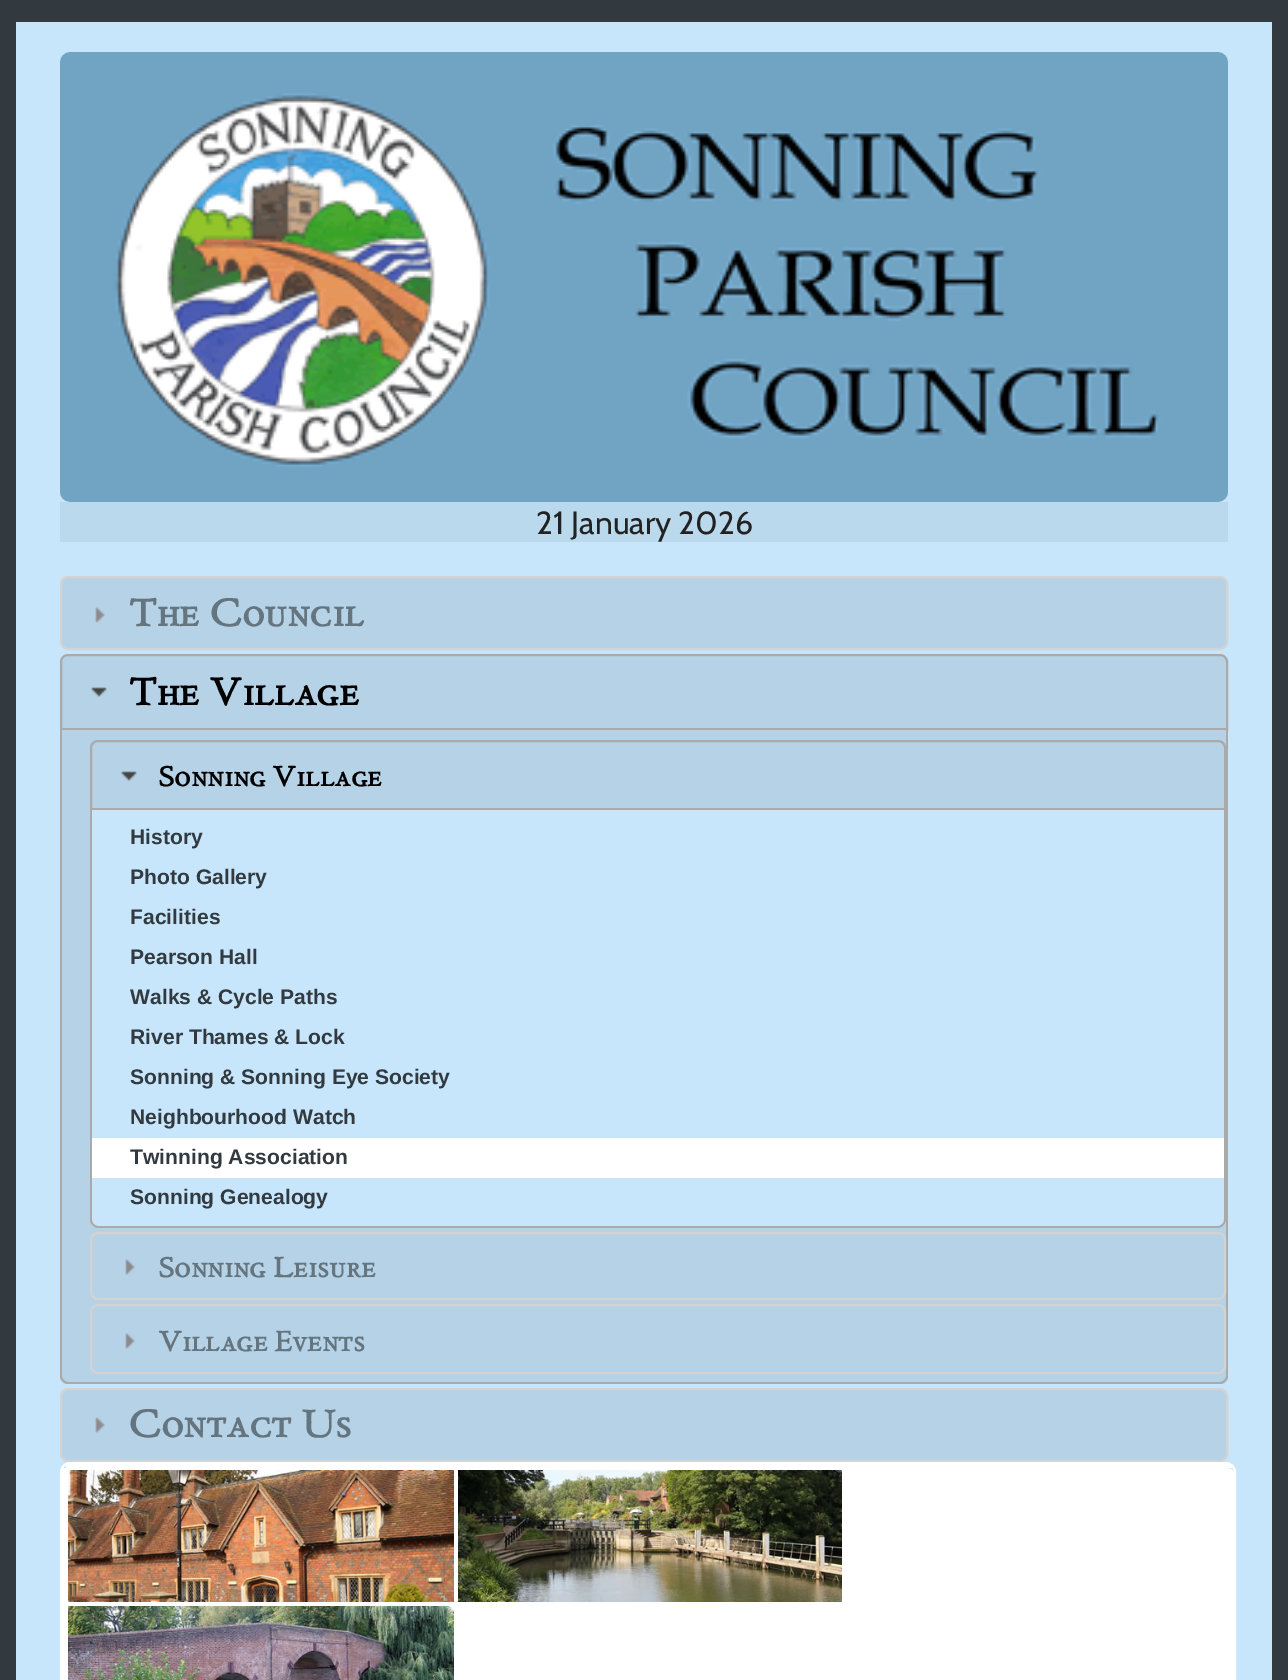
%!PS
<< /PageSize [1288 1680] >> setpagedevice
/mt/moveto load def
/li/lineto load def
/ct/curveto load def
/cp/closepath load def
/fl/fill load def
/st/stroke load def
/gs/gsave load def
/gr/grestore load def
/lw/setlinewidth load def
/co { dup -16 bitshift 255 div exch dup -8 bitshift 255 and 255 div exch 255 and 255 div setrgbcolor } def
/fn { [ exch dup neg 0 0 3 -1 roll 0 0 ] selectfont } def
/tx { co fn moveto show } def
/bx { co rectfill } def
/rr { 5 dict begin { /r /h /w /y /x } { exch def } forall
  x r add y moveto x w add y 2 copy h add r arct x w add y h add x 1 index r arct
  x y h add x y r arct x y 2 copy exch w add exch r arct closepath end } def
/im { 5 dict begin { /h /w /y /x /name } { exch def } forall
  gsave x y translate w h scale
  w h 8 [w 0 0 h 0 0] name (r) file false 3 colorimage grestore end } def
0 1680 translate 1 -1 scale
4 setmiterlimit
0 0 1288 1680 16#323A40 bx
16 22 1256 1658 16#C7E6FC bx
16#BBD9ED co
60 52 1168 450 10 rr fl
(media/1.raw) 60 52 1168 450 im
60 502 1168 40 16#BBD9ED bx
16#B5D2E6 co
61 577 1166 72 7 rr gs fl gr
16#D3D3D3 co
2 lw
st
(media/2.raw) 95 607 10 16 im
16#B5D2E6 co
68 655 mt 1220 655 li 1224 655 1227 658 1227 662 ct 1227 729 li 61 729 li 61 662 li 61 658 64 655 68 655 ct cp gs fl gr
16#AAAAAA co
st
(media/3.raw) 91 687 16 10 im
16#B5D2E6 co
60 730 mt 1228 730 li 1228 1376 li 1228 1380.5 1224.5 1384 1220 1384 ct 68 1384 li 63.5 1384 60 1380.5 60 1376 ct cp fl
16#AAAAAA co
60 730 mt 1228 730 li 1228 1376 li 1228 1380 1224 1384 1220 1384 ct 68 1384 li 64 1384 60 1380 60 1376 ct cp 62 730 mt 1226 730 li 1226 1376 li 1226 1379 1223 1382 1220 1382 ct 68 1382 li 65 1382 62 1379 62 1376 ct cp eofill
98 741 mt 1218 741 li 1222 741 1225 744 1225 748 ct 1225 809 li 91 809 li 91 748 li 91 744 94 741 98 741 ct cp st
(media/3.raw) 121 771 16 10 im
16#C7E6FC co
90 810 mt 1226 810 li 1226 1220 li 1226 1224.5 1222.5 1228 1218 1228 ct 98 1228 li 93.5 1228 90 1224.5 90 1220 ct cp fl
16#AAAAAA co
90 810 mt 1226 810 li 1226 1220 li 1226 1224 1222 1228 1218 1228 ct 98 1228 li 94 1228 90 1224 90 1220 ct cp 92 810 mt 1224 810 li 1224 1220 li 1224 1223 1221 1226 1218 1226 ct 98 1226 li 95 1226 92 1223 92 1220 ct cp eofill
92 1138 1132 40 16#FFFFFF bx
16#D3D3D3 co
91 1233 1134 66 7 rr st
(media/2.raw) 125 1259 10 16 im
91 1305 1134 68 7 rr st
(media/2.raw) 125 1333 10 16 im
16#B5D2E6 co
61 1389 1166 72 7 rr gs fl gr
16#D3D3D3 co
st
(media/2.raw) 95 1417 10 16 im
16#FFFFFF co
70 1468 mt 1226 1468 li 1230 1468 1234 1470 1234 1472 ct 1234 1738 li 1234 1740 1230 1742 1226 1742 ct 70 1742 li 68 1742 66 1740 66 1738 ct 66 1472 li 66 1470 68 1468 70 1468 ct cp fl
61 1463 1174 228 9 rr st
66 1464 1166 4 16#FFFFFF bx
62 1468 4 212 16#FFFFFF bx
67 1469 388 134 rectstroke
(media/4.raw) 68 1470 386 132 im
(media/5.raw) 458 1470 384 132 im
(media/6.raw) 68 1606 386 74 im
(21 January 2026) 536 534 /Cabin-Regular 32 16#222222 tx
(The Council) 128 626 /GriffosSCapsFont-Bold 42.5 16#65757F tx
(The Village) 128 705 /GriffosSCapsFont-Bold 42.5 16#000000 tx
(Sonning Village) 158 786 /GriffosSCapsFont-Bold 31 16#000000 tx
(History) 130 844 /LiberationSans-Bold 21.1 16#323A40 tx
(Photo Gallery) 130 884 /LiberationSans-Bold 21.1 16#323A40 tx
(Facilities) 130 924 /LiberationSans-Bold 21.1 16#323A40 tx
(Pearson Hall) 130 964 /LiberationSans-Bold 21.1 16#323A40 tx
(Walks & Cycle Paths) 130 1004 /LiberationSans-Bold 21.1 16#323A40 tx
(River Thames & Lock) 130 1044 /LiberationSans-Bold 21.1 16#323A40 tx
(Sonning & Sonning Eye Society) 130 1084 /LiberationSans-Bold 21.1 16#323A40 tx
(Neighbourhood Watch) 130 1124 /LiberationSans-Bold 21.1 16#323A40 tx
(Twinning Association) 130 1164 /LiberationSans-Bold 21.1 16#323A40 tx
(Sonning Genealogy) 130 1204 /LiberationSans-Bold 21.1 16#323A40 tx
(Sonning Leisure) 158 1277 /GriffosSCapsFont-Bold 31 16#65757F tx
(Village Events) 158 1351 /GriffosSCapsFont-Bold 31 16#65757F tx
(Contact Us) 128 1437 /GriffosSCapsFont-Bold 42.5 16#65757F tx
showpage
